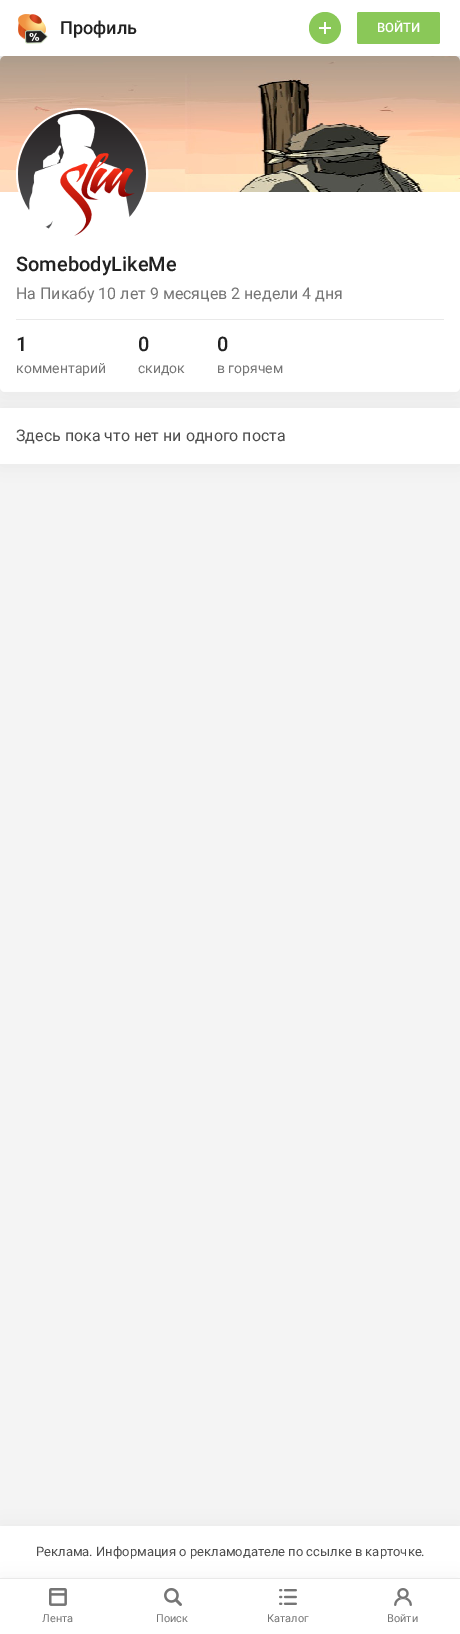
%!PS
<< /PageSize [460 1634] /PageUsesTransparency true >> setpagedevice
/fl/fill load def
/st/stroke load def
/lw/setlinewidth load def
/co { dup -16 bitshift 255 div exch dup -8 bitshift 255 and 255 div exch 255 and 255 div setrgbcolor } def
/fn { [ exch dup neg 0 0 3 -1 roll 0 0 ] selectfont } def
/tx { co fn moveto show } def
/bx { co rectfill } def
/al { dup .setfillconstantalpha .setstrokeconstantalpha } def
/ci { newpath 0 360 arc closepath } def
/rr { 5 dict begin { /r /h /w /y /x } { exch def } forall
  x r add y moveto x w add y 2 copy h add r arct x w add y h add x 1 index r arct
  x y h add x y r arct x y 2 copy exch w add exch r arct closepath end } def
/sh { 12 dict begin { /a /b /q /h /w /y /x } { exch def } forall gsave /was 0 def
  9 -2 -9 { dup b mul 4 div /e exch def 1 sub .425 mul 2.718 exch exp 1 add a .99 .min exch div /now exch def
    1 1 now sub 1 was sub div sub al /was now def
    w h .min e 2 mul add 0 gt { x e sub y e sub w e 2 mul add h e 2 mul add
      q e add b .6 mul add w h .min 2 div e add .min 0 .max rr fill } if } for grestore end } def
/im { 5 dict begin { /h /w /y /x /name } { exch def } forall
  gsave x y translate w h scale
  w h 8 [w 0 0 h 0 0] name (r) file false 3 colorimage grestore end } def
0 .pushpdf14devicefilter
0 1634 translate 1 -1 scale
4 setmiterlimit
0 0 460 1634 16#F4F4F4 bx
16#212121 co
0 57 460 336 5 10 .05 sh
16#FFFFFF co
0 56 460 336 5 rr fl
(media/3.raw) 0 56 460 136 im
16#000000 co
0 4 460 56 0 10 .08 sh
0 0 460 56 16#FFFFFF bx
(media/1.raw) 18 14 30 30 im
16#8AC858 co
325 28 16 ci fl
(media/2.raw) 319 22 12 12 im
357 12 83 32 2 rr fl
16#FFFFFF co
2 lw
82 174 65 ci st
(media/4.raw) 18 110 128 126 im
16 319 428 1 16#E9E9E9 bx
16#212121 co
0 409 460 56 0 10 .05 sh
0 408 460 56 16#FFFFFF bx
16#212121 co
0 1527 460 52 0 10 .05 sh
0 1526 460 52 16#FFFFFF bx
16#212121 co
0 1579 460 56 0 10 .05 sh
0 1579 460 55 16#FFFFFF bx
0 1578 460 1 16#E9E9E9 bx
(media/5.raw) 49 1588 18 18 im
(media/6.raw) 164 1588 18 18 im
(media/7.raw) 279 1589 18 16 im
(media/8.raw) 394 1588 18 18 im
(Профиль) 60 34 /Roboto-Medium 18 16#212121 tx
(ВОЙТИ) 377 32 /Roboto-Medium 13 16#FFFFFF tx
(SomebodyLikeMe) 16 271 /Roboto-Medium 20 16#212121 tx
(На Пикабу 10 лет 9 месяцев 2 недели 4 дня) 16 299 /Roboto-Regular 16 16#757575 tx
(1) 16 351 /Roboto-Medium 20 16#212121 tx
(комментарий) 16 373 /Roboto-Regular 14 16#757575 tx
(0) 138 351 /Roboto-Medium 20 16#212121 tx
(скидок) 138 373 /Roboto-Regular 14 16#757575 tx
(0) 217 351 /Roboto-Medium 20 16#212121 tx
(в горячем) 217 373 /Roboto-Regular 14 16#757575 tx
(Здесь пока что нет ни одного поста) 16 441 /Roboto-Regular 16 16#4D4D4D tx
(Реклама. Информация о рекламодателе по ссылке в карточке.) 36 1556 /Roboto-Regular 13 16#4D4D4D tx
(Лента) 42 1622 /Roboto-Regular 11 16#757575 tx
(Поиск) 156 1622 /Roboto-Regular 11 16#757575 tx
(Каталог) 267 1622 /Roboto-Regular 11 16#757575 tx
(Войти) 387 1622 /Roboto-Regular 11 16#757575 tx
.poppdf14devicefilter showpage
